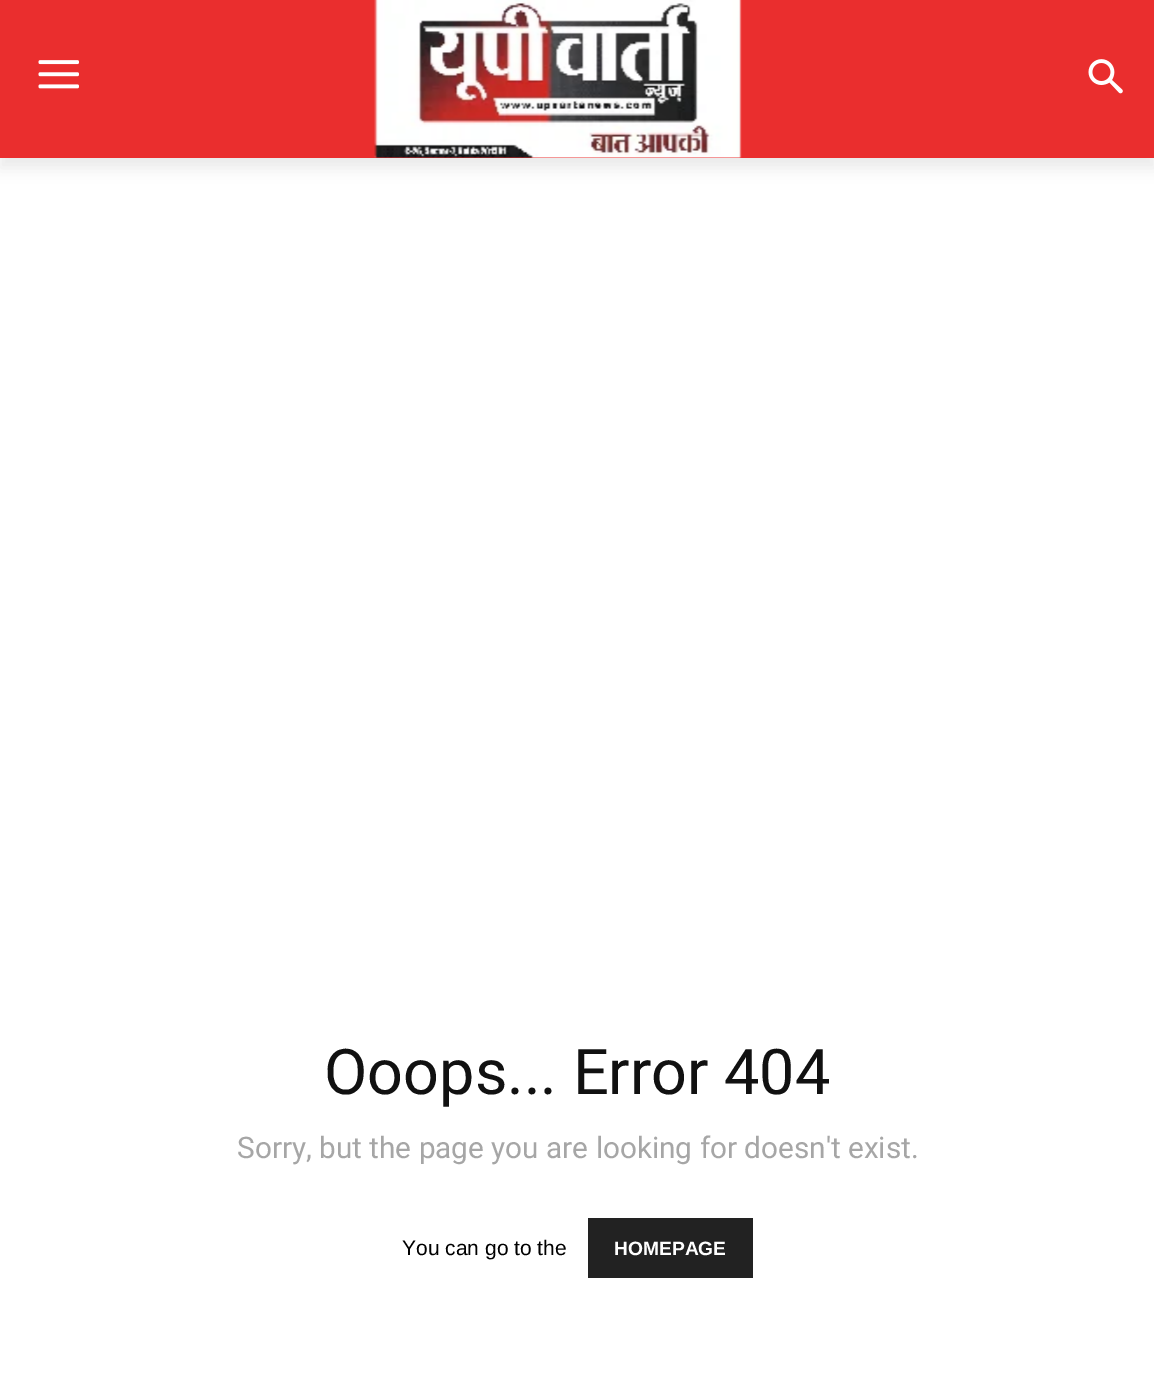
%!PS
<< /PageSize [1154 1373] /PageUsesTransparency true >> setpagedevice
/mt/moveto load def
/li/lineto load def
/cp/closepath load def
/gs/gsave load def
/gr/grestore load def
/co { dup -16 bitshift 255 div exch dup -8 bitshift 255 and 255 div exch 255 and 255 div setrgbcolor } def
/fn { [ exch dup neg 0 0 3 -1 roll 0 0 ] selectfont } def
/tx { co fn moveto show } def
/bx { co rectfill } def
/al { dup .setfillconstantalpha .setstrokeconstantalpha } def
/rr { 5 dict begin { /r /h /w /y /x } { exch def } forall
  x r add y moveto x w add y 2 copy h add r arct x w add y h add x 1 index r arct
  x y h add x y r arct x y 2 copy exch w add exch r arct closepath end } def
/sh { 12 dict begin { /a /b /q /h /w /y /x } { exch def } forall gsave /was 0 def
  9 -2 -9 { dup b mul 4 div /e exch def 1 sub .425 mul 2.718 exch exp 1 add a .99 .min exch div /now exch def
    1 1 now sub 1 was sub div sub al /was now def
    w h .min e 2 mul add 0 gt { x e sub y e sub w e 2 mul add h e 2 mul add
      q e add b .6 mul add w h .min 2 div e add .min 0 .max rr fill } if } for grestore end } def
/im { 5 dict begin { /h /w /y /x /name } { exch def } forall
  gsave x y translate w h scale
  w h 8 [w 0 0 h 0 0] name (r) file false 3 colorimage grestore end } def
0 .pushpdf14devicefilter
0 1373 translate 1 -1 scale
4 setmiterlimit
0 0 1154 1373 16#FFFFFF bx
0 0 1154 158 16#EA2E2E bx
(media/1.raw) 38 60 41 29 im
(media/2.raw) 374 0 368 158 im
(media/3.raw) 1088 59 35 35 im
gs
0 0 mt 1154 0 li 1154 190 li 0 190 li cp 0 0 mt 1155 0 li 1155 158 li 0 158 li cp eoclip newpath
16#000000 co
0 11 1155 157 0 7 .08 sh
gr
588 1218 165 60 16#222222 bx
(Ooops... Error 404) 324 1094 /Roboto-Regular 63 16#111111 tx
(Sorry, but the page you are looking for doesn't exist.) 237 1158 /Roboto-Regular 29.75 16#A6A6A6 tx
(You can go to the) 402 1255 /LiberationSans-Regular 21 16#000000 tx
(HOMEPAGE) 614 1255 /LiberationSans-Bold 19.25 16#FFFFFF tx
.poppdf14devicefilter showpage
